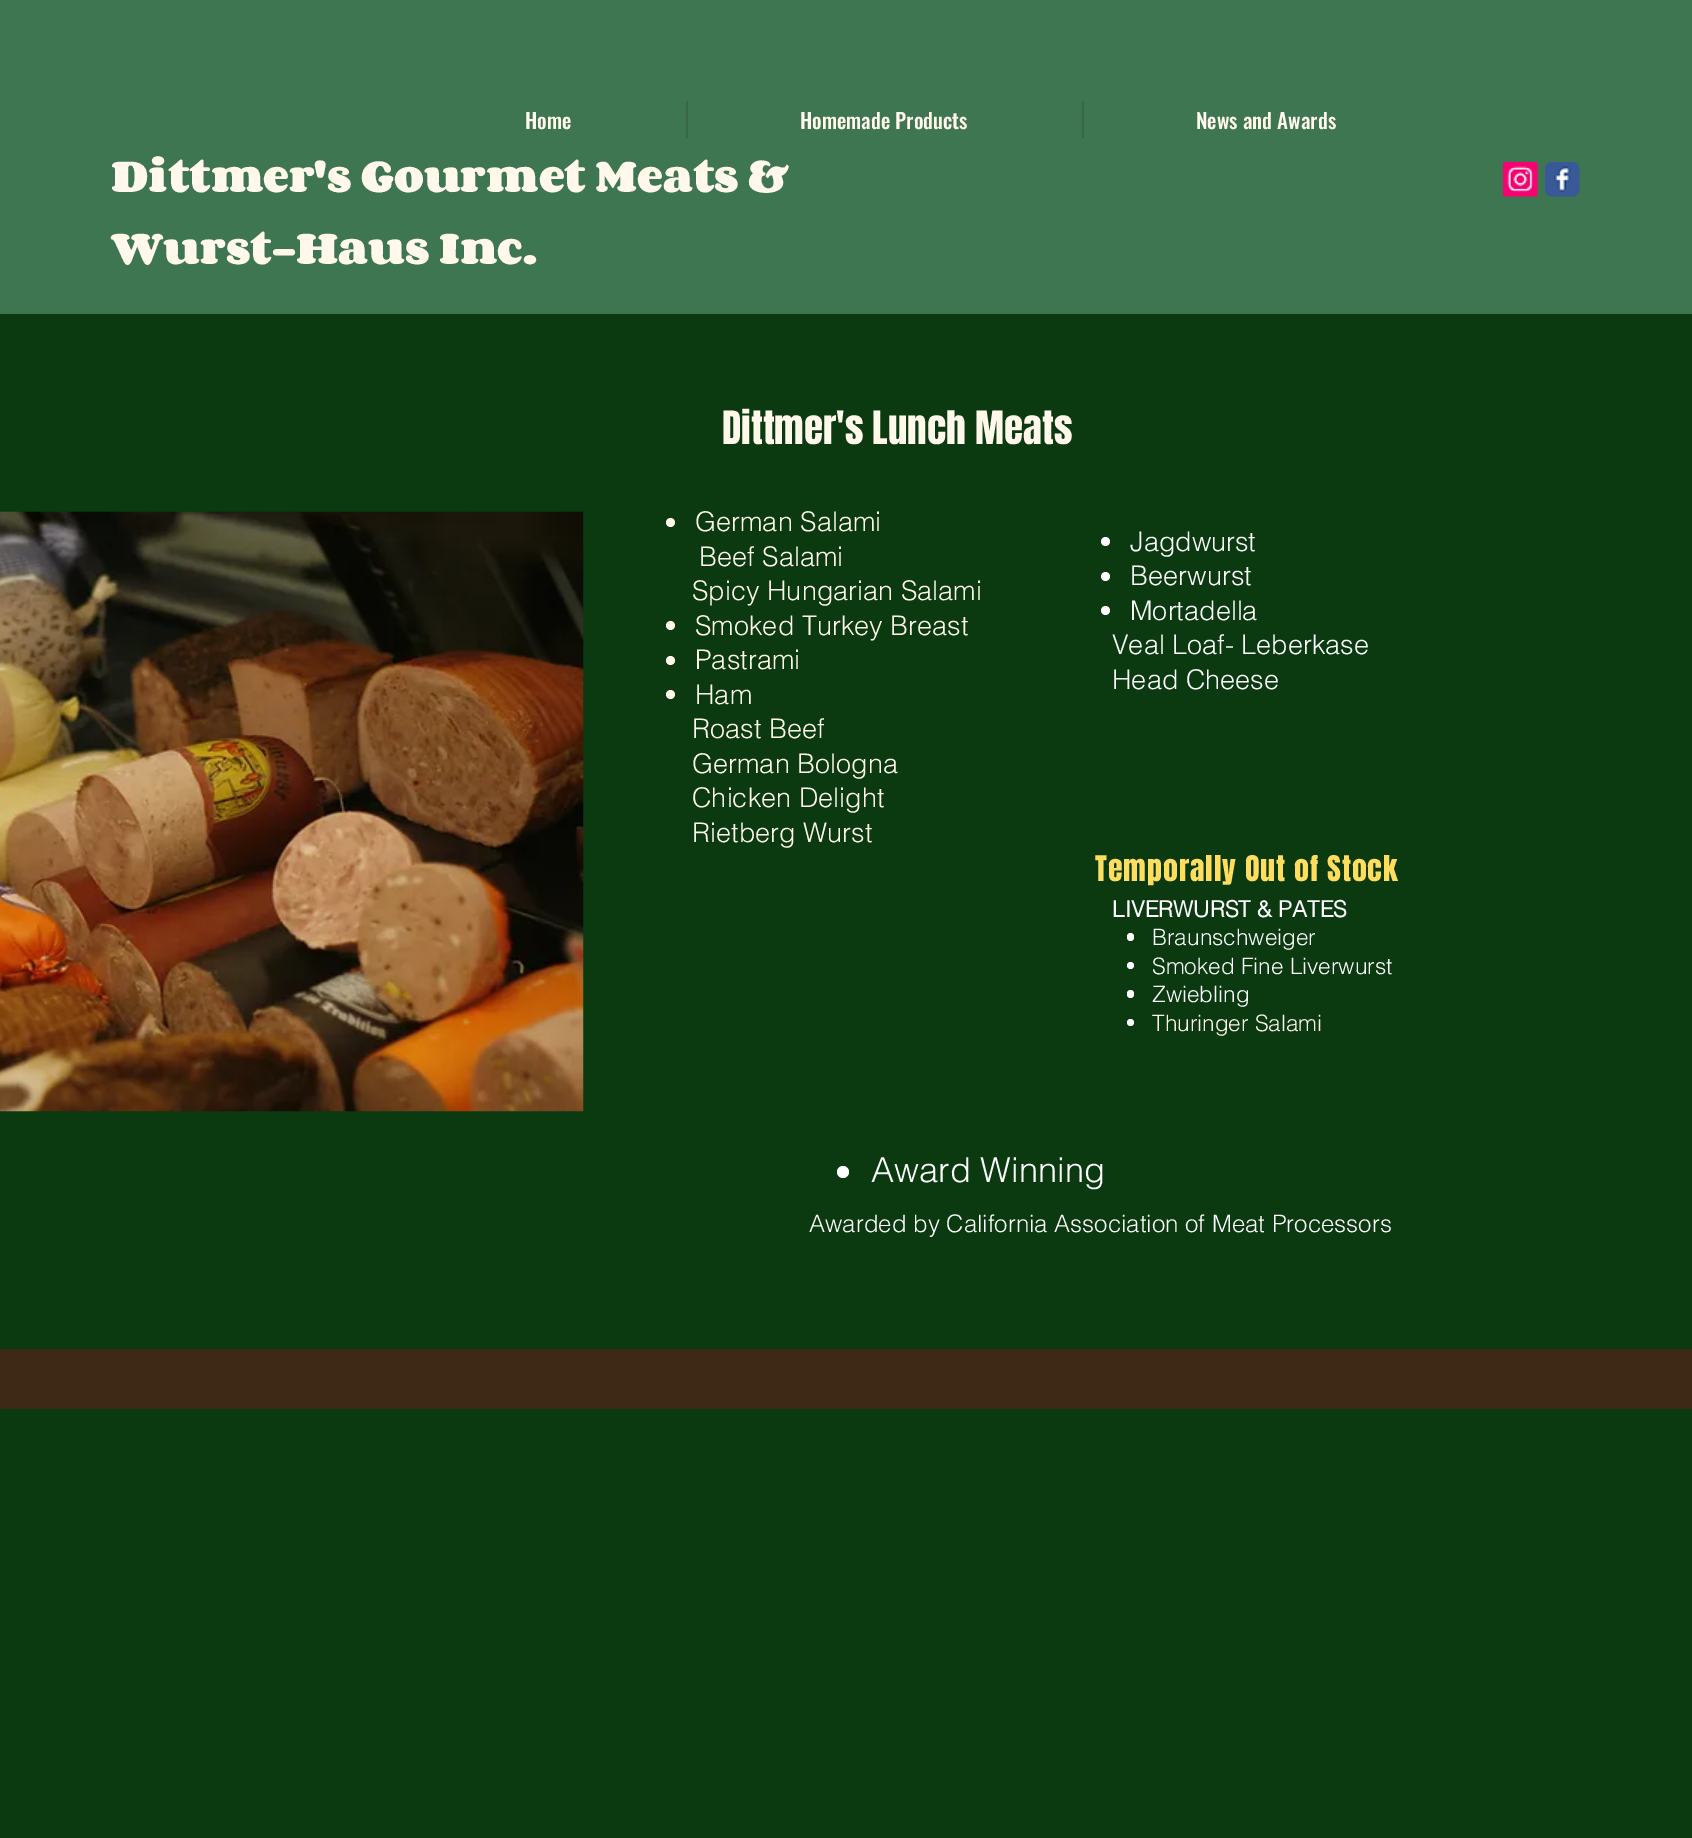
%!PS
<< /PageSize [1692 1838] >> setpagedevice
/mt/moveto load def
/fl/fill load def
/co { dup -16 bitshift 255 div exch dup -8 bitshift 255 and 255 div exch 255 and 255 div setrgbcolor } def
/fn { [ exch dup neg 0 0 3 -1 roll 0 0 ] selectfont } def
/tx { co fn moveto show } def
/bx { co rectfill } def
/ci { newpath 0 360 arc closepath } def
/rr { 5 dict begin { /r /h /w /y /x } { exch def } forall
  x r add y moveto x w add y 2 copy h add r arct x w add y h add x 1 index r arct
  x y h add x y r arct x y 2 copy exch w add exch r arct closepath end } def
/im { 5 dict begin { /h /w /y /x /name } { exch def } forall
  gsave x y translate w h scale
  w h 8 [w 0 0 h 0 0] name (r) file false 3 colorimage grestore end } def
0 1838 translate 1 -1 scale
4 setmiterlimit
0 0 1692 1838 16#0B3910 bx
0 0 1692 314 16#3F7652 bx
686 101 2 37 16#396549 bx
1082 101 2 37 16#396549 bx
(media/1.raw) 1503 162 35 35 im
(media/2.raw) 1545 162 35 35 im
(media/3.raw) 0 511 584 601 im
16#FFFFFF co
1105.5 541.5 4.5 ci fl
1105.5 576.5 4.5 ci fl
1105.5 610.5 4.5 ci fl
1127 933 7 8 3.5 rr fl
1130.5 965.5 3.5 ci fl
1127 990 7 8 3.5 rr fl
1130.5 1022.5 3.5 ci fl
16#FFFFFE co
843 1172 6 ci fl
16#FFF8EB co
670.5 522.5 4.5 ci fl
670.5 625.5 4.5 ci fl
670.5 660.5 4.5 ci fl
670.5 694.5 4.5 ci fl
0 1349 1692 60 16#3D2915 bx
(Home) 525 129 /Oswald-Medium 21 16#FFF8EB tx
(Homemade Products) 800 129 /Oswald-Medium 21 16#FFF8EB tx
(News and Awards) 1196 129 /Oswald-Medium 21 16#FFF8EB tx
(Dittmer's Gourmet Meats &) 111 192 /Corben-Bold 39 16#FFF8EB tx
(Wurst-Haus Inc.) 111 264 /Corben-Bold 39 16#FFF8EB tx
(Dittmer's Lunch Meats) 722 444 /Anton-Regular 39 16#FFF8EB tx
(Jagdwurst) 1130 551 /helvetica-Light 27 16#FFFFFF tx
(Beerwurst) 1130 585 /helvetica-Light 27 16#FFFFFF tx
(Mortadella) 1130 620 /helvetica-Light 27 16#FFFFFF tx
(Veal Loaf- Leberkase) 1112 654 /helvetica-Light 27 16#FFFFFF tx
(Head Cheese) 1112 689 /helvetica-Light 27 16#FFFFFF tx
/Anton-Regular 30 fn
16#FFDE5F co
1095 881 mt .9 0 (Temporally Out of Stock) ashow
(LIVERWURST & PATES) 1112 917 /helvetica-Bold 22.5 16#FFFFFF tx
(Braunschweiger) 1152 945 /helvetica-Light 22.5 16#FFFFFF tx
(Smoked Fine Liverwurst) 1152 974 /helvetica-Light 22.5 16#FFFFFF tx
(Zwiebling) 1152 1002 /helvetica-Light 22.5 16#FFFFFF tx
(Thuringer Salami) 1152 1031 /helvetica-Light 22.5 16#FFF8EB tx
(Award Winning) 871 1182 /helvetica-Light 34.5 16#FFFFFF tx
(Awarded by California Association of Meat Processors) 809 1232 /helvetica-Light 24 16#FFFFFF tx
(German Salami) 695 531 /helvetica-Light 27 16#FFF8EB tx
(Beef Salami) 699 566 /helvetica-Light 27 16#FFF8EB tx
(Spicy Hungarian Salami) 692 600 /helvetica-Light 27 16#FFF8EB tx
(Smoked Turkey Breast) 695 635 /helvetica-Light 27 16#FFF8EB tx
(Pastrami) 695 669 /helvetica-Light 27 16#FFF8EB tx
(Ham) 695 704 /helvetica-Light 27 16#FFF8EB tx
(Roast Beef) 692 738 /helvetica-Light 27 16#FFF8EB tx
(German Bologna) 692 773 /helvetica-Light 27 16#FFF8EB tx
(Chicken Delight) 692 807 /helvetica-Light 27 16#FFF8EB tx
(Rietberg Wurst) 692 842 /helvetica-Light 27 16#FFF8EB tx
showpage
